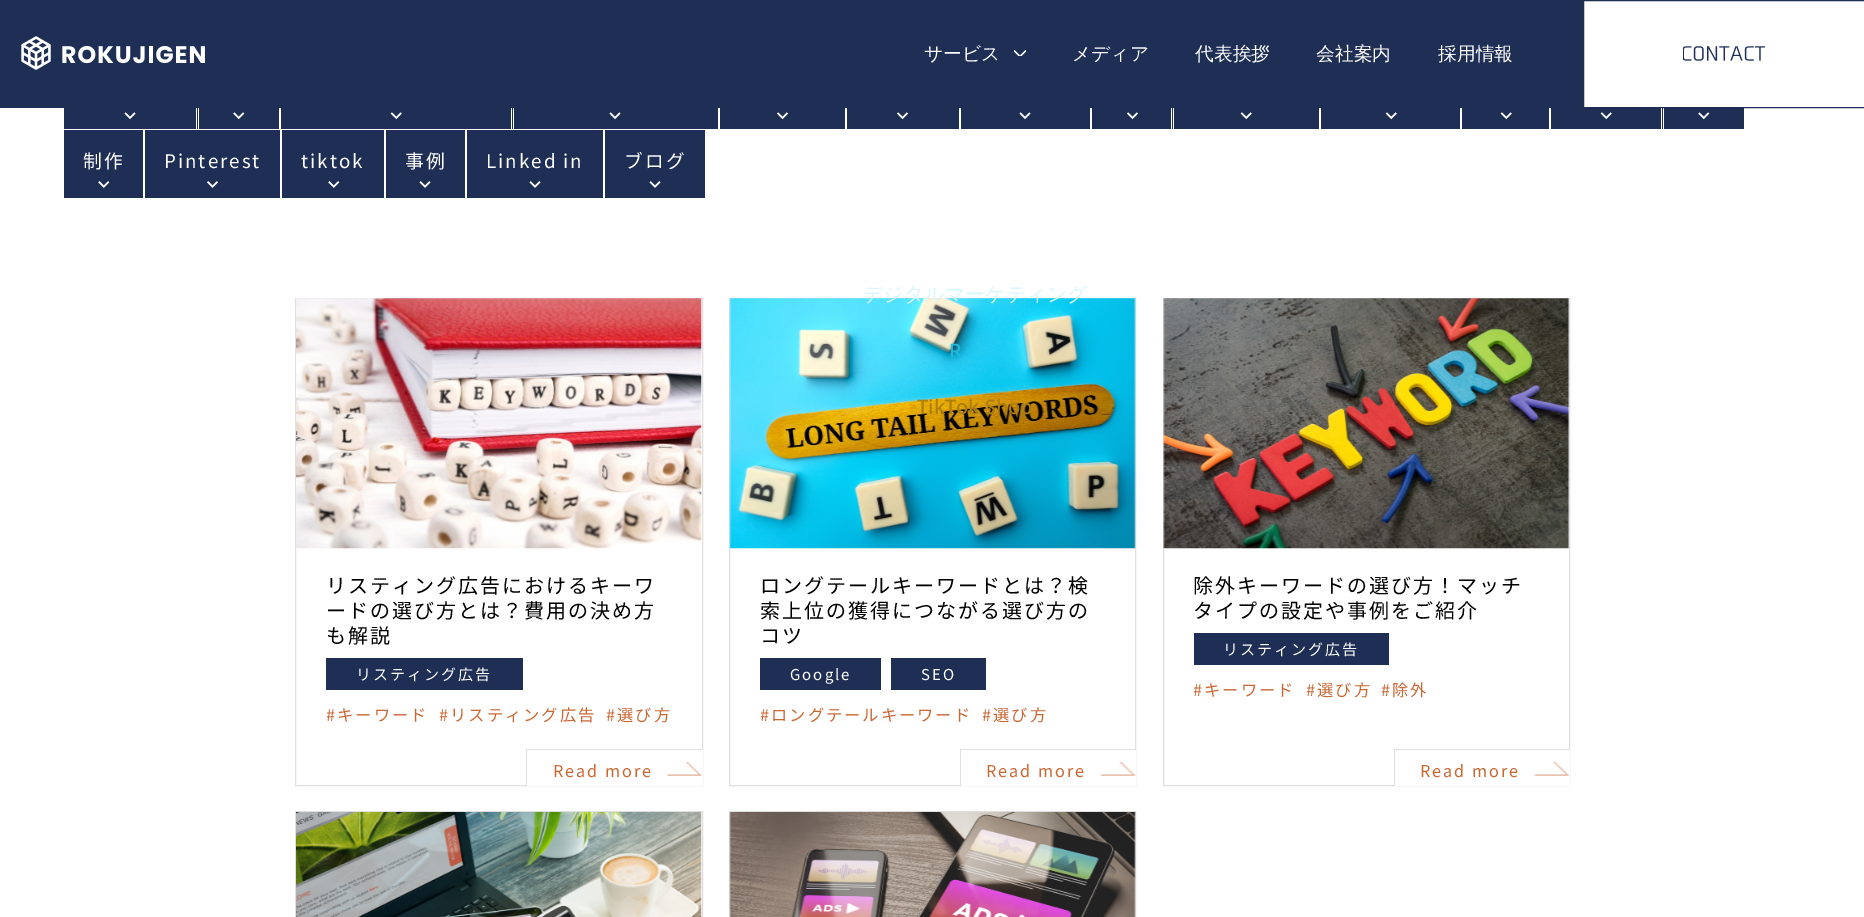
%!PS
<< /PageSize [1864 917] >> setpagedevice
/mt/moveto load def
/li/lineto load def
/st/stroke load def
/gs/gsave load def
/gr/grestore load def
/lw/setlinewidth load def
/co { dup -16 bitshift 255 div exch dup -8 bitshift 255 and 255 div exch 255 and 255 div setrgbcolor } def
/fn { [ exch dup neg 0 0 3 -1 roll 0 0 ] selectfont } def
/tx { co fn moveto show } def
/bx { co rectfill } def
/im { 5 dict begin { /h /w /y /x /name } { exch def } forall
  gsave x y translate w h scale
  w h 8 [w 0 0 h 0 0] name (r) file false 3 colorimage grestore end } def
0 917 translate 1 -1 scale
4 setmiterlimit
0 0 1864 917 16#FFFFFF bx
0 0 1583 108 16#1E2E55 bx
(media/1.raw) 21 36 184 34 im
gs
1014 50 12 6 rectclip
16#FFFFFF co
1.2 lw
1014 50.5 mt 1020 56.5 li 1026 50.5 li st
gr
1583.5 .5 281 107 rectstroke
(media/2.raw) 1683 46 82 15 im
64 108 134 21 16#1F2E55 bx
196 108 1 21 16#FFFFFF bx
(media/3.raw) 124 112 12 8 im
199 108 80 21 16#1F2E55 bx
(media/4.raw) 233 112 12 8 im
281 108 232 21 16#1F2E55 bx
511 108 1 21 16#FFFFFF bx
(media/5.raw) 390 112 12 8 im
514 108 204 21 16#1F2E55 bx
(media/3.raw) 609 112 12 8 im
720 108 125 21 16#1F2E55 bx
(media/6.raw) 777 112 11 8 im
847 108 112 21 16#1F2E55 bx
(media/6.raw) 897 112 11 8 im
961 108 129 21 16#1F2E55 bx
(media/3.raw) 1019 112 12 8 im
1092 108 81 21 16#1F2E55 bx
1171 108 1 21 16#FFFFFF bx
(media/6.raw) 1127 112 11 8 im
1174 108 145 21 16#1F2E55 bx
(media/5.raw) 1240 112 12 8 im
1321 108 139 21 16#1F2E55 bx
(media/5.raw) 1385 112 12 8 im
1462 108 87 21 16#1F2E55 bx
(media/5.raw) 1500 112 12 8 im
1551 108 112 21 16#1F2E55 bx
1661 108 1 21 16#FFFFFF bx
(media/5.raw) 1600 112 12 8 im
1664 108 80 21 16#1F2E55 bx
(media/4.raw) 1698 112 12 8 im
64 130 79 68 16#1F2E55 bx
(media/7.raw) 98 181 12 7 im
145 130 135 68 16#1F2E55 bx
(media/8.raw) 207 181 11 7 im
282 130 102 68 16#1F2E55 bx
(media/7.raw) 328 181 12 7 im
386 130 79 68 16#1F2E55 bx
(media/9.raw) 419 181 12 7 im
467 130 136 68 16#1F2E55 bx
(media/9.raw) 529 181 12 7 im
605 130 100 68 16#1F2E55 bx
(media/9.raw) 649 181 12 7 im
16#E0DEDE co
295.5 298.5 407 487 rectstroke
(media/10.raw) 296 298 406 251 im
326 658 197 32 16#1F2E55 bx
527 750 176 36 16#FFFFFF bx
(media/11.raw) 667 762 35 14 im
526 749 177 1 16#E0DEDE bx
526 749 1 37 16#E0DEDE bx
729.5 298.5 406 487 rectstroke
(media/12.raw) 729 298 407 251 im
760 658 121 32 16#1F2E55 bx
891 658 95 32 16#1F2E55 bx
961 750 175 36 16#FFFFFF bx
(media/13.raw) 1101 762 35 14 im
960 749 176 1 16#E0DEDE bx
960 749 1 37 16#E0DEDE bx
1163.5 298.5 406 487 rectstroke
(media/14.raw) 1163 298 406 251 im
1194 633 195 32 16#1F2E55 bx
1395 750 175 36 16#FFFFFF bx
(media/15.raw) 1534 762 36 14 im
1394 749 176 1 16#E0DEDE bx
1394 749 1 37 16#E0DEDE bx
295.5 811.5 407 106 rectstroke
(media/16.raw) 296 812 406 105 im
729.5 811.5 406 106 rectstroke
(media/17.raw) 729 812 407 105 im
(サービス) 924 60 /WenQuanYiZenHei-Medium 18.75 16#FFFFFF tx
(デジタルマーケティング) 863 301 /WenQuanYiZenHei-Medium 20 16#D8F7FC tx
(R) 949 358 /NotoSans-Medium 20 16#21BADD tx
(TikTok Shop) 917 414 /NotoSans-Medium 20 16#AC7F0C tx
(メディア) 1072 60 /WenQuanYiZenHei-Medium 18.75 16#FFFFFF tx
(代表挨拶) 1195 60 /WenQuanYiZenHei-Medium 18.75 16#FFFFFF tx
(会社案内) 1316 60 /WenQuanYiZenHei-Medium 18.75 16#FFFFFF tx
(採用情報) 1438 60 /WenQuanYiZenHei-Medium 18.75 16#FFFFFF tx
/NotoSansJP-Regular 18.75 fn
83 168 mt 2 0 (制作) ashow
164 168 mt 2 0 (Pinterest) ashow
301 168 mt 2 0 (tiktok) ashow
405 168 mt 2 0 (事例) ashow
486 168 mt 2 0 (Linked in) ashow
624 168 mt 2 0 (ブログ) ashow
/NotoSansJP-Regular 20 fn
16#000000 co
326 593 mt 2 0 (リスティング広告におけるキーワ) ashow
326 618 mt 2 0 (ードの選び方とは？費用の決め方) ashow
326 643 mt 2 0 (も解説) ashow
/NotoSansJP-Regular 15 fn
16#FFFFFF co
356 680 mt 2 0 (リスティング広告) ashow
/NotoSansJP-Regular 16.25 fn
16#C96733 co
326 721 mt 2 0 (#キーワード) ashow
439 721 mt 2 0 (#リスティング広告) ashow
606 721 mt 2 0 (#選び方) ashow
553 777 mt 2 0 (Read more) ashow
/NotoSansJP-Regular 20 fn
16#000000 co
760 593 mt 2 0 (ロングテールキーワードとは？検) ashow
760 618 mt 2 0 (索上位の獲得につながる選び方の) ashow
760 643 mt 2 0 (コツ) ashow
/NotoSansJP-Regular 15 fn
16#FFFFFF co
790 680 mt 2 0 (Google) ashow
921 680 mt 2 0 (SEO) ashow
/NotoSansJP-Regular 16.25 fn
16#C96733 co
760 721 mt 2 0 (#ロングテールキーワード) ashow
982 721 mt 2 0 (#選び方) ashow
986 777 mt 2 0 (Read more) ashow
/NotoSansJP-Regular 20 fn
16#000000 co
1193 593 mt 2 0 (除外キーワードの選び方！マッチ) ashow
1193 618 mt 2 0 (タイプの設定や事例をご紹介) ashow
/NotoSansJP-Regular 15 fn
16#FFFFFF co
1223 655 mt 2 0 (リスティング広告) ashow
/NotoSansJP-Regular 16.25 fn
16#C96733 co
1193 696 mt 2 0 (#キーワード) ashow
1306 696 mt 2 0 (#選び方) ashow
1381 696 mt 2 0 (#除外) ashow
1420 777 mt 2 0 (Read more) ashow
showpage
